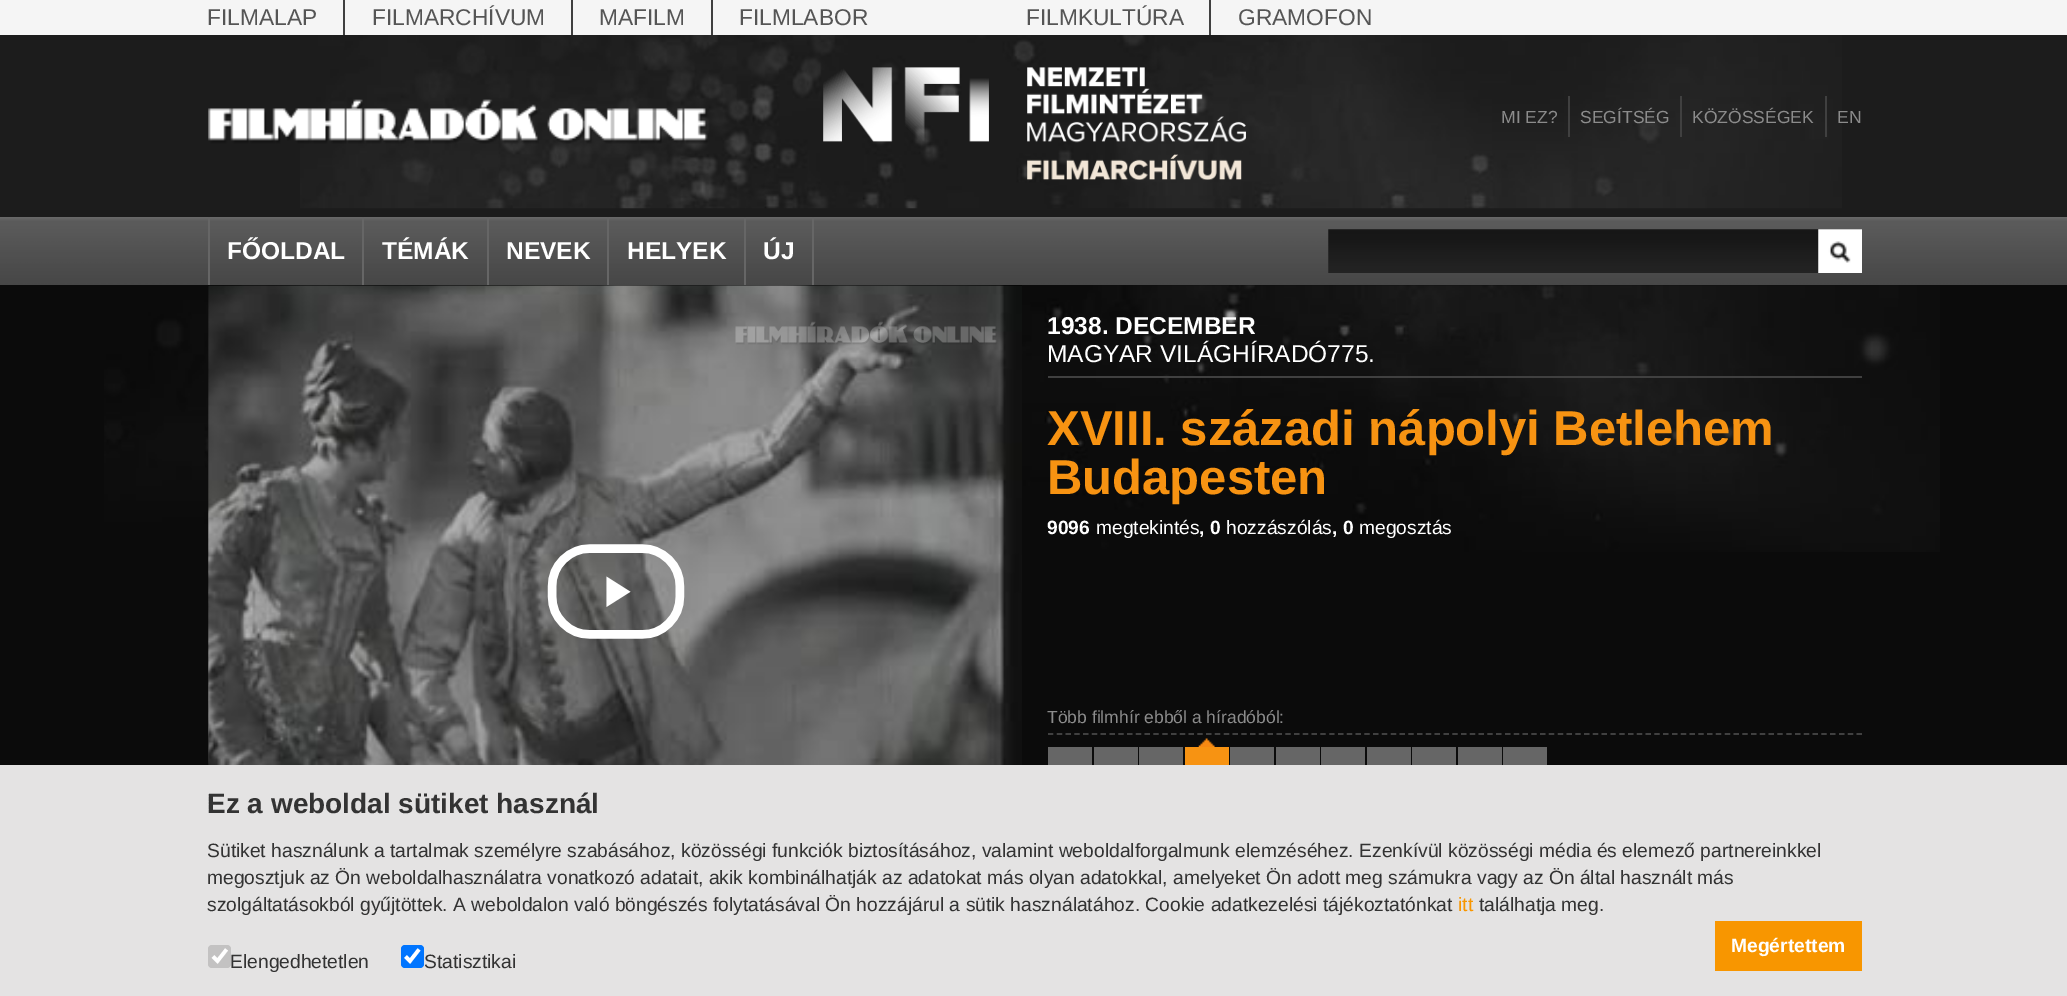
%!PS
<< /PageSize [2067 996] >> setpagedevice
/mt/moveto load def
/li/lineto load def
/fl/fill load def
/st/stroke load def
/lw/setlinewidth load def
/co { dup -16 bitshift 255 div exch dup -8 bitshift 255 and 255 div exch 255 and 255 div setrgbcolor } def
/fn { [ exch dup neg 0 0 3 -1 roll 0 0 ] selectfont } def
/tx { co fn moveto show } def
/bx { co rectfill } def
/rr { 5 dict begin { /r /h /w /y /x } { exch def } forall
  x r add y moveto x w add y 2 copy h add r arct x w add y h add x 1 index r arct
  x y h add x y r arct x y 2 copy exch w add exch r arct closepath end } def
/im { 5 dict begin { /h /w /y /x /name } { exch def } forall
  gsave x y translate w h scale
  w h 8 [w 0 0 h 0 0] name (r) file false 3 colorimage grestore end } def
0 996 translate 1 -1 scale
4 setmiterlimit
0 0 2067 996 16#1C1C1C bx
(media/1.raw) 300 35 1542 174 im
0 0 2067 35 16#F5F5F5 bx
343 0 2 35 16#404040 bx
571 0 2 35 16#404040 bx
711 0 2 35 16#404040 bx
1209 0 2 35 16#404040 bx
(media/2.raw) 208 99 500 45 im
(media/3.raw) 823 67 423 113 im
1568 96 2 41 16#404040 bx
1680 96 2 41 16#404040 bx
1825 96 2 41 16#404040 bx
(media/4.raw) 0 217 2067 68 im
208 217 2 68 16#666666 bx
362 217 2 68 16#666666 bx
487 217 2 68 16#666666 bx
607 217 2 68 16#666666 bx
812 217 2 68 16#666666 bx
744 217 2 68 16#666666 bx
(media/5.raw) 1328 229 534 44 im
(media/6.raw) 1818 229 44 44 im
0 285 2067 480 16#0B0B0B bx
(media/7.raw) 104 285 1836 267 im
(media/8.raw) 208 285 814 480 im
1048 376 814 2 16#404040 bx
1.8 lw
[5.25 3.54] 0 setdash
1048 734 mt 1862 734 li st
1048 747 44 18 16#666666 bx
1094 747 44 18 16#666666 bx
1139 747 44 18 16#666666 bx
(media/9.raw) 1198 738 17 9 im
1185 747 44 18 16#F79312 bx
1230 747 44 18 16#666666 bx
1276 747 44 18 16#666666 bx
1321 747 44 18 16#666666 bx
1367 747 44 18 16#666666 bx
1412 747 44 18 16#666666 bx
1458 747 44 18 16#666666 bx
1503 747 44 18 16#666666 bx
0 765 2067 231 16#E4E3E3 bx
1715 921 147 50 16#F89600 bx
16#C3C2C2 co
208 945 23 23 4 rr fl
16#FFFFFF co
3.6 lw
[] 0 setdash
213 956.5 mt 217.5 961 li 226.5 949.5 li st
16#0075FF co
401 945 23 23 4 rr fl
16#FFFFFF co
405.5 956.5 mt 410 961 li 419 949.5 li st
(FILMALAP) 207 25 /LiberationSans-Regular 22.75 16#555555 tx
(FILMARCHÍVUM) 372 25 /LiberationSans-Regular 22.75 16#555555 tx
(MAFILM) 599 25 /LiberationSans-Regular 22.75 16#555555 tx
(FILMLABOR) 739 25 /LiberationSans-Regular 22.75 16#555555 tx
(FILMKULTÚRA) 1026 25 /LiberationSans-Regular 22.75 16#555555 tx
(GRAMOFON) 1238 25 /LiberationSans-Regular 22.75 16#555555 tx
(MI EZ?) 1501 123 /LiberationSans-Regular 17.5 16#8C8C8C tx
(SEGÍTSÉG) 1580 123 /LiberationSans-Regular 17.5 16#8C8C8C tx
(KÖZÖSSÉGEK) 1692 123 /LiberationSans-Regular 17.5 16#8C8C8C tx
(EN) 1837 123 /LiberationSans-Regular 17.5 16#8C8C8C tx
(FŐOLDAL) 227 259 /LiberationSans-Bold 24.5 16#FFFFFF tx
(TÉMÁK) 382 259 /LiberationSans-Bold 24.5 16#FFFFFF tx
(NEVEK) 506 259 /LiberationSans-Bold 24.5 16#FFFFFF tx
(HELYEK) 627 259 /LiberationSans-Bold 24.5 16#FFFFFF tx
(ÚJ) 763 259 /LiberationSans-Bold 24.5 16#FFFFFF tx
(1938. DECEMBER) 1047 334 /LiberationSans-Bold 24.5 16#FFFFFF tx
(MAGYAR VILÁGHÍRADÓ775.) 1047 362 /LiberationSans-Regular 24.5 16#FFFFFF tx
(XVIII. századi nápolyi Betlehem) 1047 445 /LiberationSans-Bold 49 16#F79312 tx
(Budapesten) 1047 494 /LiberationSans-Bold 49 16#F79312 tx
(9096) 1047 534 /LiberationSans-Bold 19.25 16#FFFFFF tx
(megtekintés) 1096 534 /LiberationSans-Regular 19.25 16#FFFFFF tx
(, 0) 1199 534 /LiberationSans-Bold 19.25 16#FFFFFF tx
(hozzászólás) 1226 534 /LiberationSans-Regular 19.25 16#FFFFFF tx
(, 0) 1332 534 /LiberationSans-Bold 19.25 16#FFFFFF tx
(megosztás) 1359 534 /LiberationSans-Regular 19.25 16#FFFFFF tx
(Több filmhír ebből a híradóból:) 1047 723 /LiberationSans-Regular 17.5 16#8C8C8C tx
(Ez a weboldal sütiket használ) 207 813 /LiberationSans-Bold 28 16#333333 tx
(Sütiket használunk a tartalmak személyre szabásához, közösségi funkciók biztosításához, valamint weboldalforgalmunk elemzéséhez. Ezenkívül közösségi média és elemező partnereinkkel) 207 857 /LiberationSans-Regular 19.25 16#333333 tx
(megosztjuk az Ön weboldalhasználatra vonatkozó adatait, akik kombinálhatják az adatokat más olyan adatokkal, amelyeket Ön adott meg számukra vagy az Ön által használt más) 207 884 /LiberationSans-Regular 19.25 16#333333 tx
(szolgáltatásokból gyűjtöttek. A weboldalon való böngészés folytatásával Ön hozzájárul a sütik használatához. Cookie adatkezelési tájékoztatónkat) 207 911 /LiberationSans-Regular 19.25 16#333333 tx
(itt) 1458 911 /LiberationSans-Regular 19.25 16#F89600 tx
(találhatja meg.) 1479 911 /LiberationSans-Regular 19.25 16#333333 tx
(Megértettem) 1731 952 /LiberationSans-Bold 19.25 16#FFFFFF tx
(Elengedhetetlen) 230 968 /LiberationSans-Regular 19.25 16#333333 tx
(Statisztikai) 424 968 /LiberationSans-Regular 19.25 16#333333 tx
showpage
